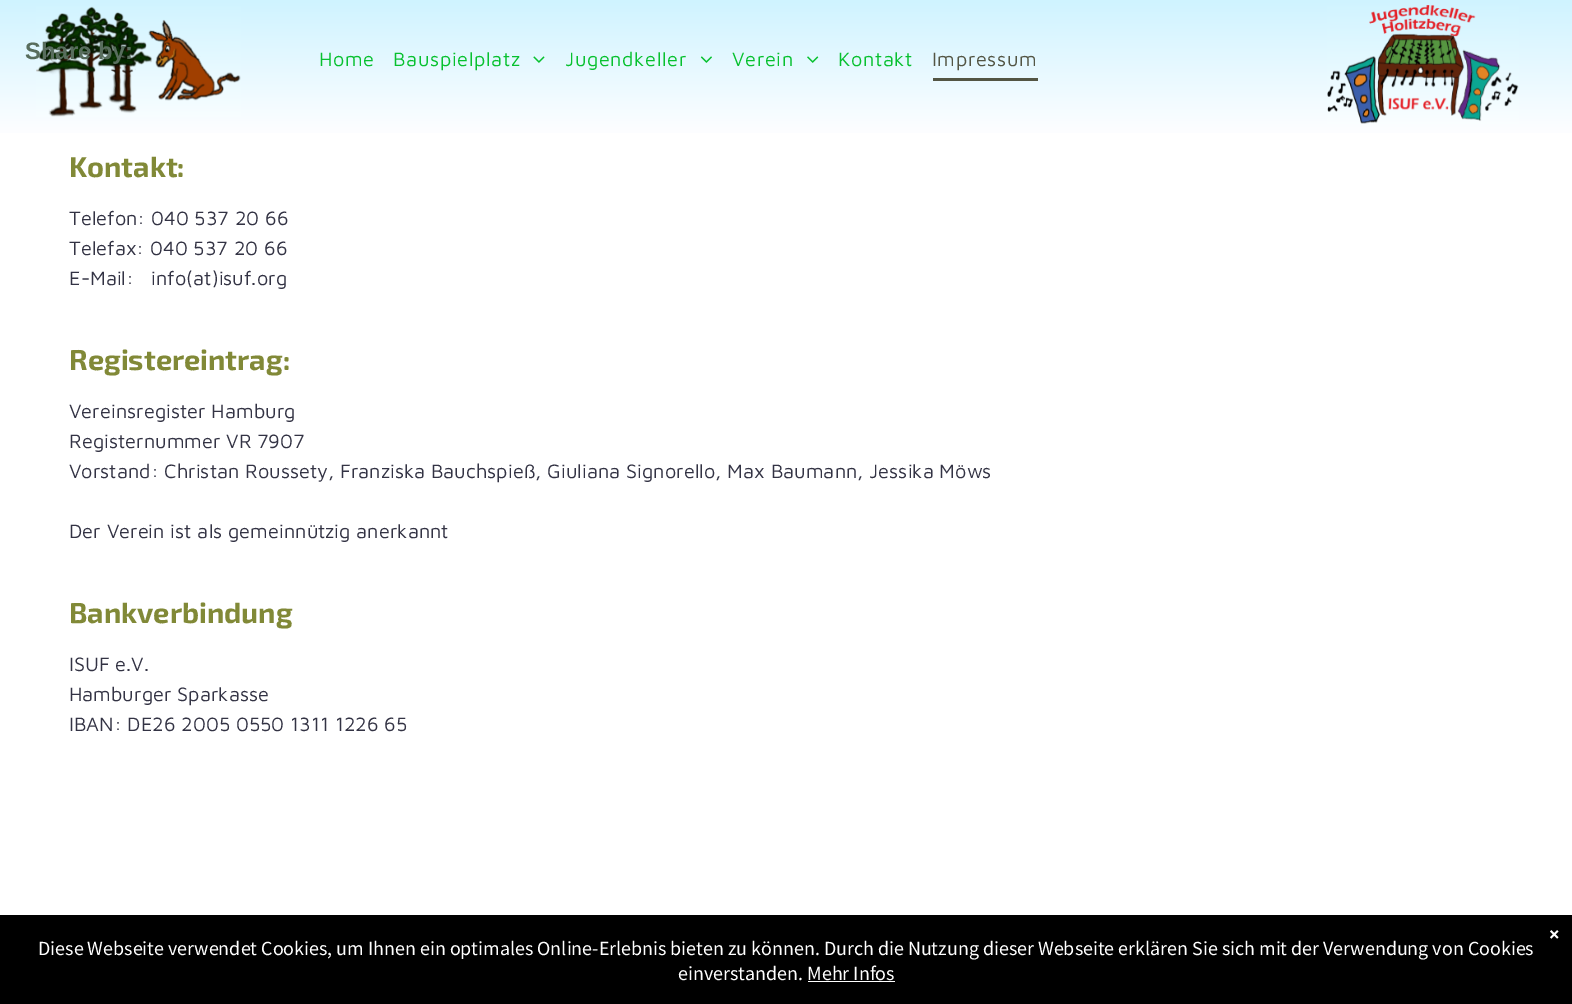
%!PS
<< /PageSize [1572 1004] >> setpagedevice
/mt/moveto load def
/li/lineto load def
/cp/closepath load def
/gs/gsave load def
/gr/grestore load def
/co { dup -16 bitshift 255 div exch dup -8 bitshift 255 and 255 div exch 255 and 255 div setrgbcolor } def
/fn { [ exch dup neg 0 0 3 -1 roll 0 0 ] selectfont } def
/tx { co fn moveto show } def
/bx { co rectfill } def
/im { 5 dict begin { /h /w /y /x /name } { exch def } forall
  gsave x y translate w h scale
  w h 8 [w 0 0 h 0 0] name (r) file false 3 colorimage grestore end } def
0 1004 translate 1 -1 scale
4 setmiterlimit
0 0 1572 1004 16#FFFFFF bx
gs 0 0 mt 1572 0 li 1572 133 li 0 133 li cp clip newpath
<< /ShadingType 2 /ColorSpace /DeviceRGB /Coords [786 140 786 0] /Extend [true true] /Function << /FunctionType 2 /Domain [0 1] /C0 [1 1 1] /C1 [.812 .953 1] /N 1 >> >> shfill gr
(media/1.raw) 36 6 205 111 im
(media/2.raw) 533 56 12 7 im
(media/3.raw) 700 56 12 7 im
(media/4.raw) 807 56 12 7 im
933 78 105 3 16#535544 bx
(media/5.raw) 1327 5 192 119 im
0 915 1572 89 16#000000 bx
808 981 87 1 16#FFFFFF bx
(Share by:) 25 59 /LiberationSans-Bold 23.75 16#586D5D tx
/MavenPro-Regular 20 fn
16#07C12F co
319 66 mt .6 0 (Home) ashow
393 66 mt .6 0 (Bauspielplatz) ashow
565 66 mt .6 0 (Jugendkeller) ashow
732 66 mt .6 0 (Verein) ashow
838 66 mt .6 0 (Kontakt) ashow
16#535544 co
932 66 mt .6 0 (Impressum) ashow
(Kontakt:) 69 177 /Exo2-Bold 28.75 16#818937 tx
(Telefon: 040 537 20 66) 69 225 /MavenPro-Regular 20 16#333344 tx
(Telefax: 040 537 20 66) 69 255 /MavenPro-Regular 20 16#333344 tx
(E-Mail:   info\(at\)isuf.org) 69 285 /MavenPro-Regular 20 16#333344 tx
(Registereintrag:) 69 370 /Exo2-Bold 28.75 16#818937 tx
(Vereinsregister Hamburg) 69 418 /MavenPro-Regular 20 16#333344 tx
(Registernummer VR 7907) 69 448 /MavenPro-Regular 20 16#333344 tx
(Vorstand: Christan Roussety, Franziska Bauchspieß, Giuliana Signorello, Max Baumann, Jessika Möws) 69 478 /MavenPro-Regular 20 16#333344 tx
(Der Verein ist als gemeinnützig anerkannt) 69 538 /MavenPro-Regular 20 16#333344 tx
(Bankverbindung) 69 623 /Exo2-Bold 28.75 16#818937 tx
(ISUF e.V.) 69 671 /MavenPro-Regular 20 16#333344 tx
(Hamburger Sparkasse) 69 701 /MavenPro-Regular 20 16#333344 tx
(IBAN: DE26 2005 0550 1311 1226 65) 69 731 /MavenPro-Regular 20 16#333344 tx
(×) 1549 941 /SourceSansPro-Bold 20 16#FFFFFF tx
(Diese Webseite verwendet Cookies, um Ihnen ein optimales Online-Erlebnis bieten zu können. Durch die Nutzung dieser Webseite erklären Sie sich mit der Verwendung von Cookies) 38 955 /SourceSansPro-Regular 20 16#FFFFFF tx
(einverstanden. Mehr Infos) 678 980 /SourceSansPro-Regular 20 16#FFFFFF tx
showpage
